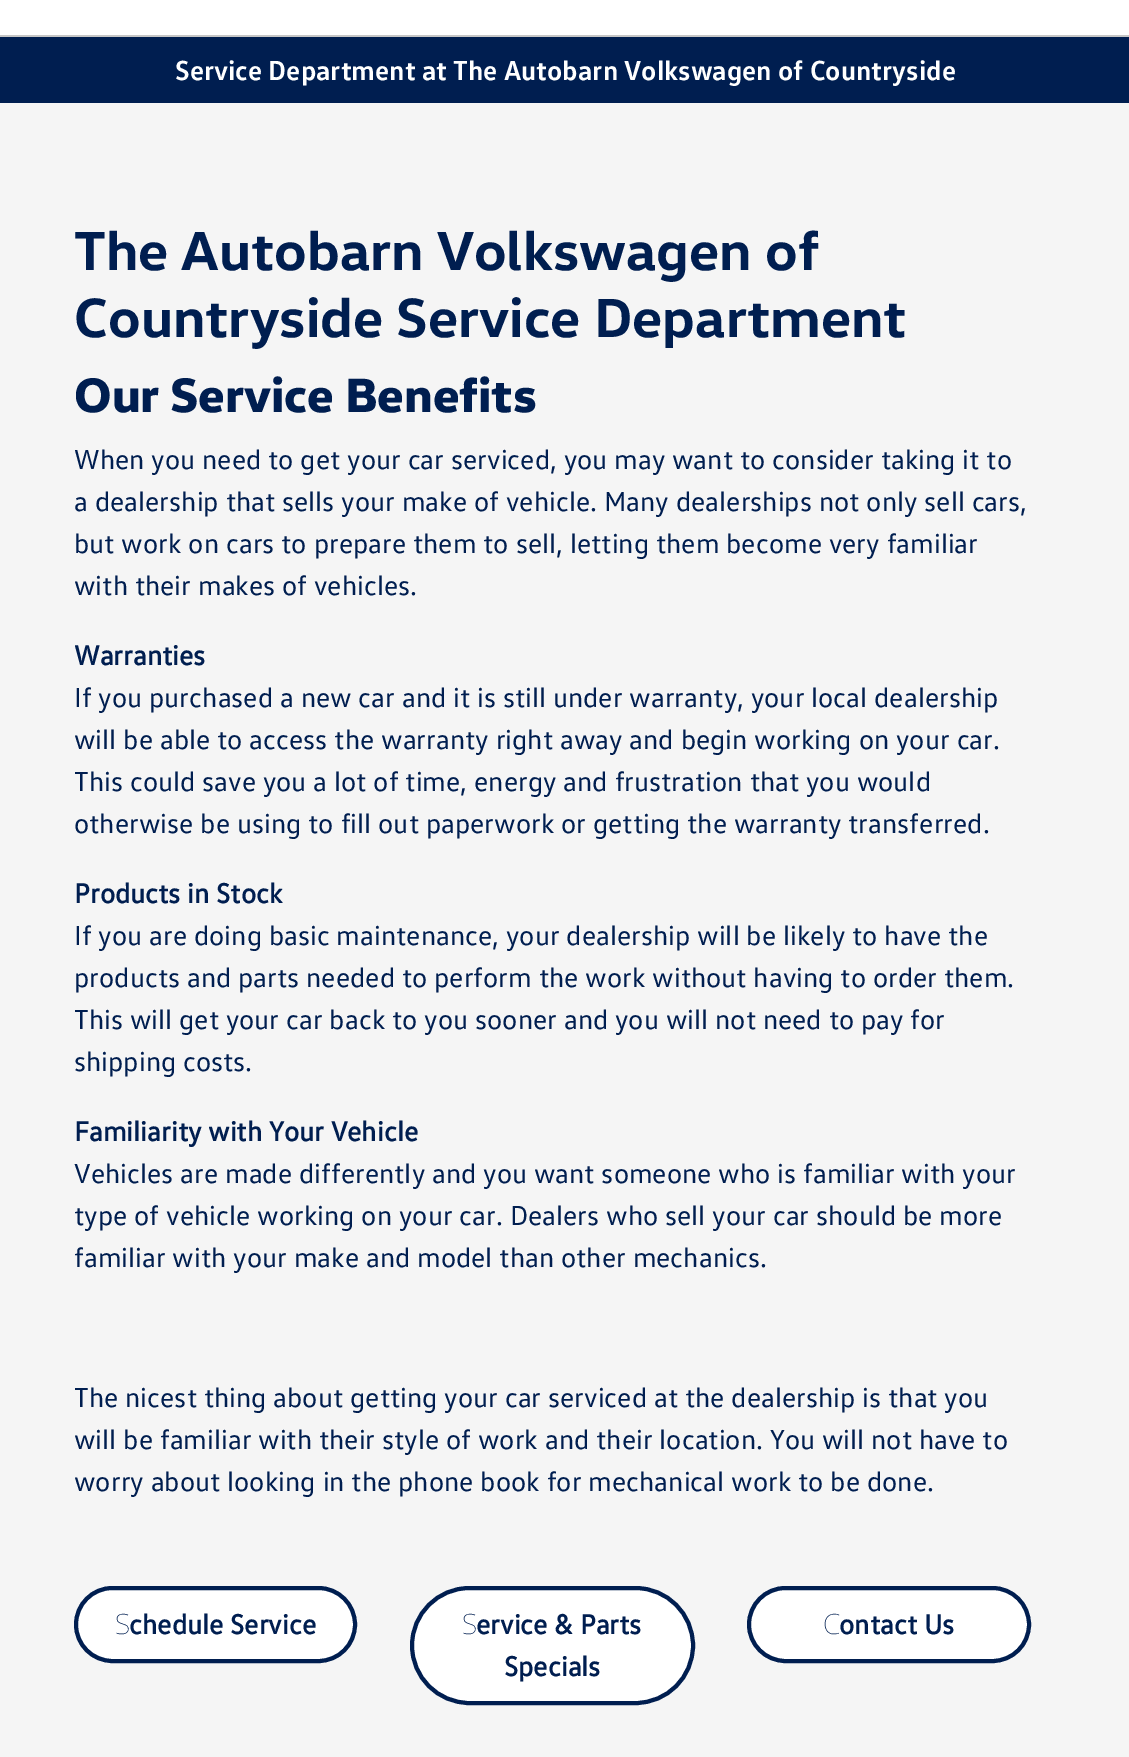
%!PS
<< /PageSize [1129 1757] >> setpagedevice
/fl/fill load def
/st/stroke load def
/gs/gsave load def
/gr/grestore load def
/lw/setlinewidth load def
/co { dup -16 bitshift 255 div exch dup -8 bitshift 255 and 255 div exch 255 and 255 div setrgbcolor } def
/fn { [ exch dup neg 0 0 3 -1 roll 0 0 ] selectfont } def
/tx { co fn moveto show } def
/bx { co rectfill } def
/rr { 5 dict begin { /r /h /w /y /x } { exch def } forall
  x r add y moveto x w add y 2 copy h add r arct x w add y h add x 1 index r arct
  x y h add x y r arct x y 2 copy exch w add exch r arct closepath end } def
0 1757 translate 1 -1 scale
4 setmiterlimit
0 0 1129 1757 16#FFFFFF bx
0 103 1129 1654 16#F5F5F5 bx
0 37 1129 66 16#001E50 bx
0 35 1129 2 16#C6C6C6 bx
16#FFFFFF co
76 1588 279 73 36.5 rr gs fl gr
16#001E50 co
4 lw
st
16#FFFFFF co
412 1588 281 115 57.5 rr gs fl gr
16#001E50 co
st
16#FFFFFF co
749 1588 280 73 36.5 rr gs fl gr
16#001E50 co
st
(Service Department at The Autobarn Volkswagen of Countryside) 175 80 /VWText-Bold 28 16#FFFFFF tx
(The Autobarn Volkswagen of) 74 270 /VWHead-Bold 56 16#001E50 tx
(Countryside Service Department) 74 337 /VWHead-Bold 56 16#001E50 tx
(Our Service Benefits) 74 412 /VWHead-ExtraBold 49 16#001E50 tx
(When you need to get your car serviced, you may want to consider taking it to) 74 469 /VWText-Regular 28 16#001E50 tx
(a dealership that sells your make of vehicle. Many dealerships not only sell cars,) 74 511 /VWText-Regular 28 16#001E50 tx
(but work on cars to prepare them to sell, letting them become very familiar) 74 553 /VWText-Regular 28 16#001E50 tx
(with their makes of vehicles.) 74 595 /VWText-Regular 28 16#001E50 tx
(Warranties) 74 665 /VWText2-Bold 28 16#001E50 tx
(If you purchased a new car and it is still under warranty, your local dealership) 74 707 /VWText-Regular 28 16#001E50 tx
(will be able to access the warranty right away and begin working on your car.) 74 749 /VWText-Regular 28 16#001E50 tx
(This could save you a lot of time, energy and frustration that you would) 74 791 /VWText-Regular 28 16#001E50 tx
(otherwise be using to fill out paperwork or getting the warranty transferred.) 74 833 /VWText-Regular 28 16#001E50 tx
(Products in Stock) 74 903 /VWText2-Bold 28 16#001E50 tx
(If you are doing basic maintenance, your dealership will be likely to have the) 74 945 /VWText-Regular 28 16#001E50 tx
(products and parts needed to perform the work without having to order them.) 74 987 /VWText-Regular 28 16#001E50 tx
(This will get your car back to you sooner and you will not need to pay for) 74 1029 /VWText-Regular 28 16#001E50 tx
(shipping costs.) 74 1071 /VWText-Regular 28 16#001E50 tx
(Familiarity with Your Vehicle) 74 1141 /VWText2-Bold 28 16#001E50 tx
(Vehicles are made differently and you want someone who is familiar with your) 74 1183 /VWText-Regular 28 16#001E50 tx
(type of vehicle working on your car. Dealers who sell your car should be more) 74 1225 /VWText-Regular 28 16#001E50 tx
(familiar with your make and model than other mechanics.) 74 1267 /VWText-Regular 28 16#001E50 tx
(The nicest thing about getting your car serviced at the dealership is that you) 74 1407 /VWText-Regular 28 16#001E50 tx
(will be familiar with their style of work and their location. You will not have to) 74 1449 /VWText-Regular 28 16#001E50 tx
(worry about looking in the phone book for mechanical work to be done.) 74 1491 /VWText-Regular 28 16#001E50 tx
(S) 115 1634 /NotoSans-Thin 28 16#001E50 tx
(chedule Service) 129 1634 /VWText2-Bold 28 16#001E50 tx
(S) 462 1634 /NotoSans-Thin 28 16#001E50 tx
(ervice & Parts) 476 1634 /VWText2-Bold 28 16#001E50 tx
(Specials) 504 1676 /VWText2-Bold 28 16#001E50 tx
(C) 823 1634 /NotoSans-Thin 28 16#001E50 tx
(ontact Us) 839 1634 /VWText2-Bold 28 16#001E50 tx
showpage
